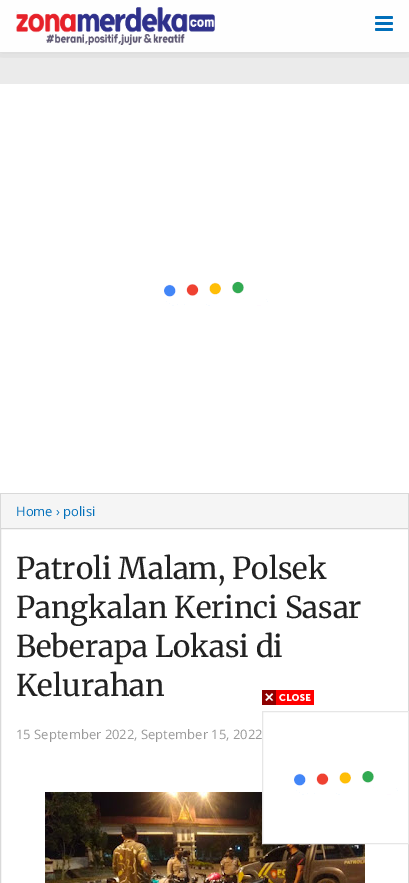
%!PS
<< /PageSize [409 883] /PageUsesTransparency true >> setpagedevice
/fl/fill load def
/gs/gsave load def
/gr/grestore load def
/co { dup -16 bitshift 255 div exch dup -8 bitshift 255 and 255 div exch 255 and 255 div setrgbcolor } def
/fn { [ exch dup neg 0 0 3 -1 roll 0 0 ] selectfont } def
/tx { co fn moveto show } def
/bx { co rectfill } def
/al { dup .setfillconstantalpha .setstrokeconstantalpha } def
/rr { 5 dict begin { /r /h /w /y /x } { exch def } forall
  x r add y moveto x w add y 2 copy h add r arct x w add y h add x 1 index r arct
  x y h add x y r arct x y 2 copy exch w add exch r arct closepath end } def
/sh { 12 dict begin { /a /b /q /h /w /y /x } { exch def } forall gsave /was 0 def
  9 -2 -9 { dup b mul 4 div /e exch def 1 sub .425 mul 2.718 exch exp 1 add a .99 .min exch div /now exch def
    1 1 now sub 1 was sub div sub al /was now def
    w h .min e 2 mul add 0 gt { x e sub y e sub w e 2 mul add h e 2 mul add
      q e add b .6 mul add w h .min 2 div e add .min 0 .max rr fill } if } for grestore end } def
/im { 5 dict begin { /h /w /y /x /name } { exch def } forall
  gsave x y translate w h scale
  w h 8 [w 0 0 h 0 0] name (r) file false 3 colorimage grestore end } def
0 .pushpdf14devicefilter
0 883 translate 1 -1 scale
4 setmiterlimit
0 0 409 883 16#EBEBEB bx
0 0 409 52 16#FEFEFE bx
gs
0 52 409 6 rectclip
16#000000 co
0 0 409 52 0 7.5 .1 sh
gr
(media/1.raw) 16 7 199 38 im
16#016FBA co
375 16 18 3 1.5 rr fl
375 22 18 3 1.5 rr fl
375 28 18 3 1.5 rr fl
0 84 409 409 16#FFFFFF bx
(media/2.raw) 164 281 104 25 im
1 529 407 354 16#FFFFFF bx
16#D9D9D9 co
.5 493.5 408 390 rectstroke
1 494 407 34 16#F5F5F5 bx
gs
1 494 407 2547 rectclip
16#D5D5D5 co
-.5 488.5 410 40 rectstroke
gr
(media/3.raw) 45 792 320 91 im
(media/4.raw) 262 690 52 15 im
263 792 102 51 16#FFFFFF bx
(media/5.raw) 294 771 104 24 im
16#E6E6E6 co
262.5 711.5 146 132 rectstroke
(Home › polisi) 16 516 /OpenSans-Regular 13 16#016FBA tx
(Patroli Malam, Polsek) 16 579 /Merriweather-Regular 30 16#222222 tx
(Pangkalan Kerinci Sasar) 16 618 /Merriweather-Regular 30 16#222222 tx
(Beberapa Lokasi di) 16 657 /Merriweather-Regular 30 16#222222 tx
(Kelurahan) 16 696 /Merriweather-Regular 30 16#222222 tx
(15 September 2022, September 15, 2022) 16 739 /OpenSans-Regular 13 16#999999 tx
.poppdf14devicefilter showpage
